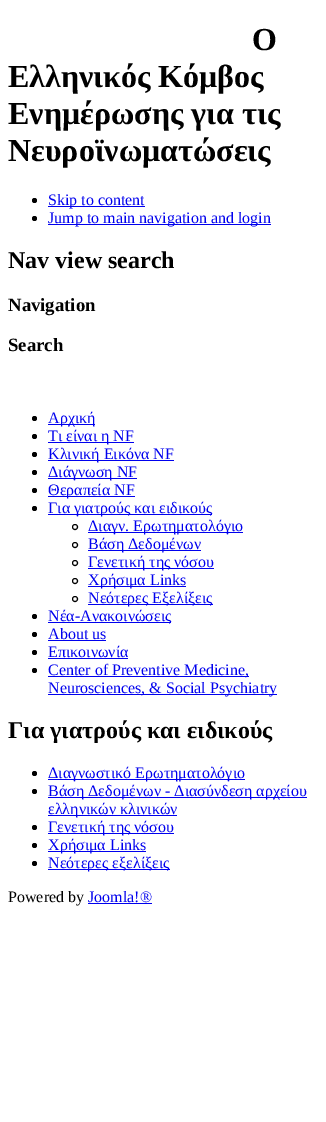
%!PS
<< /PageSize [326 1122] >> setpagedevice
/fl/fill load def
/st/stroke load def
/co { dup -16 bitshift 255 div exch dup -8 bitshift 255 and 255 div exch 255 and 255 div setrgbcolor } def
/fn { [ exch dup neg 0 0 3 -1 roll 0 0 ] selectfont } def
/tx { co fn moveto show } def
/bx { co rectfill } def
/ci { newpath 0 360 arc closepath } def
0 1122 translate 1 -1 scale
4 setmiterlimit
0 0 326 1122 16#FFFFFF bx
16#000000 co
34.5 200.5 2.5 ci fl
48 206 97 1 16#0000EE bx
16#000000 co
34.5 218.5 2.5 ci fl
48 224 223 1 16#0000EE bx
16#000000 co
34.5 418.5 2.5 ci fl
48 424 47 1 16#0000EE bx
16#000000 co
34.5 436.5 2.5 ci fl
48 442 86 1 16#0000EE bx
16#000000 co
34.5 454.5 2.5 ci fl
48 460 126 1 16#0000EE bx
16#000000 co
34.5 472.5 2.5 ci fl
48 478 89 1 16#0000EE bx
16#000000 co
34.5 490.5 2.5 ci fl
48 496 87 1 16#0000EE bx
16#000000 co
34.5 508.5 2.5 ci fl
48 514 164 1 16#0000EE bx
16#000000 co
75 527 2.5 ci st
88 532 155 1 16#0000EE bx
16#000000 co
75 545 2.5 ci st
88 550 113 1 16#0000EE bx
16#000000 co
75 563 2.5 ci st
88 568 126 1 16#0000EE bx
16#000000 co
75 581 2.5 ci st
88 586 98 1 16#0000EE bx
16#000000 co
75 599 2.5 ci st
88 604 125 1 16#0000EE bx
16#000000 co
34.5 616.5 2.5 ci fl
48 622 123 1 16#0000EE bx
16#000000 co
34.5 634.5 2.5 ci fl
48 640 58 1 16#0000EE bx
16#000000 co
34.5 652.5 2.5 ci fl
48 658 80 1 16#0000EE bx
16#000000 co
34.5 670.5 2.5 ci fl
48 676 201 1 16#0000EE bx
48 694 229 1 16#0000EE bx
16#000000 co
34.5 773.5 2.5 ci fl
48 779 197 1 16#0000EE bx
16#000000 co
34.5 791.5 2.5 ci fl
48 797 259 1 16#0000EE bx
48 815 129 1 16#0000EE bx
16#000000 co
34.5 827.5 2.5 ci fl
48 833 126 1 16#0000EE bx
16#000000 co
34.5 845.5 2.5 ci fl
48 851 98 1 16#0000EE bx
16#000000 co
34.5 863.5 2.5 ci fl
48 869 122 1 16#0000EE bx
88 903 64 1 16#0000EE bx
(Ο) 252 50 /LiberationSerif-Bold 32 16#000000 tx
(Ελληνικός Κόμβος) 8 87 /LiberationSerif-Bold 32 16#000000 tx
(Ενημέρωσης για τις) 8 124 /LiberationSerif-Bold 32 16#000000 tx
(Νευροϊνωματώσεις) 8 161 /LiberationSerif-Bold 32 16#000000 tx
(Skip to content) 48 205 /LiberationSerif-Regular 16 16#0000EE tx
(Jump to main navigation and login) 48 223 /LiberationSerif-Regular 16 16#0000EE tx
(Nav view search) 8 268 /LiberationSerif-Bold 24 16#000000 tx
(Navigation) 8 311 /LiberationSerif-Bold 18.75 16#000000 tx
(Search) 8 351 /LiberationSerif-Bold 18.75 16#000000 tx
(Αρχική) 48 423 /LiberationSerif-Regular 16 16#0000EE tx
(Τι είναι η NF) 48 441 /LiberationSerif-Regular 16 16#0000EE tx
(Κλινική Εικόνα NF) 48 459 /LiberationSerif-Regular 16 16#0000EE tx
(Διάγνωση NF) 48 477 /LiberationSerif-Regular 16 16#0000EE tx
(Θεραπεία NF) 48 495 /LiberationSerif-Regular 16 16#0000EE tx
(Για γιατρούς και ειδικούς) 48 513 /LiberationSerif-Regular 16 16#0000EE tx
(Διαγν. Ερωτηματολόγιο) 88 531 /LiberationSerif-Regular 16 16#0000EE tx
(Βάση Δεδομένων) 88 549 /LiberationSerif-Regular 16 16#0000EE tx
(Γενετική της νόσου) 88 567 /LiberationSerif-Regular 16 16#0000EE tx
(Χρήσιμα Links) 88 585 /LiberationSerif-Regular 16 16#0000EE tx
(Νεότερες Εξελίξεις) 88 603 /LiberationSerif-Regular 16 16#0000EE tx
(Νέα-Ανακοινώσεις) 48 621 /LiberationSerif-Regular 16 16#0000EE tx
(Αbout us) 48 639 /LiberationSerif-Regular 16 16#0000EE tx
(Eπικοινωνία) 48 657 /LiberationSerif-Regular 16 16#0000EE tx
(Center of Preventive Medicine,) 48 675 /LiberationSerif-Regular 16 16#0000EE tx
(Neurosciences, & Social Psychiatry) 48 693 /LiberationSerif-Regular 16 16#0000EE tx
(Για γιατρούς και ειδικούς) 8 738 /LiberationSerif-Bold 24 16#000000 tx
(Διαγνωστικό Ερωτηματολόγιο) 48 778 /LiberationSerif-Regular 16 16#0000EE tx
(Βάση Δεδομένων - Διασύνδεση αρχείου) 48 796 /LiberationSerif-Regular 16 16#0000EE tx
(ελληνικών κλινικών) 48 814 /LiberationSerif-Regular 16 16#0000EE tx
(Γενετική της νόσου) 48 832 /LiberationSerif-Regular 16 16#0000EE tx
(Χρήσιμα Links) 48 850 /LiberationSerif-Regular 16 16#0000EE tx
(Νεότερες εξελίξεις) 48 868 /LiberationSerif-Regular 16 16#0000EE tx
(Powered by) 8 902 /LiberationSerif-Regular 16 16#000000 tx
(Joomla!®) 88 902 /LiberationSerif-Regular 16 16#0000EE tx
showpage
